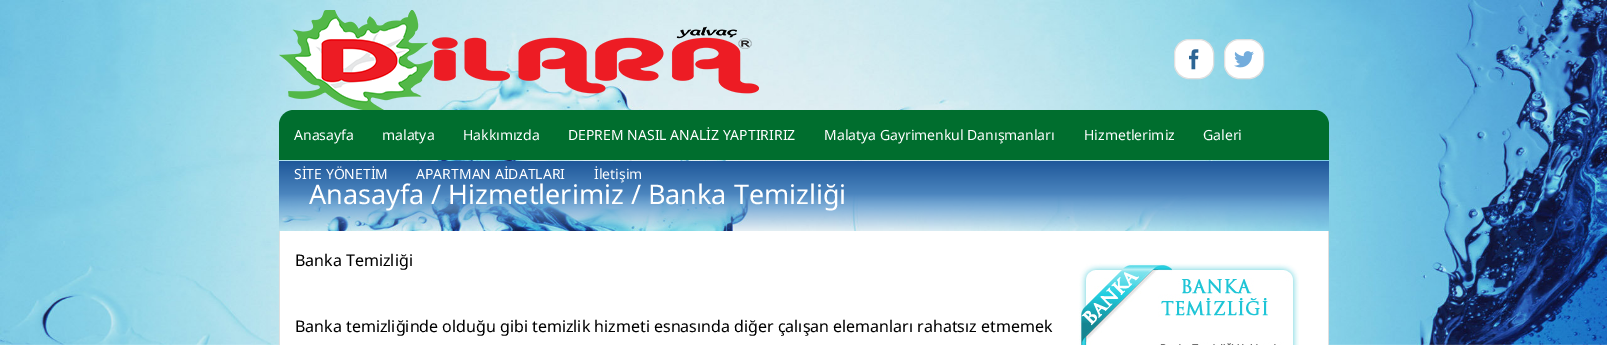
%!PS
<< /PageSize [1607 345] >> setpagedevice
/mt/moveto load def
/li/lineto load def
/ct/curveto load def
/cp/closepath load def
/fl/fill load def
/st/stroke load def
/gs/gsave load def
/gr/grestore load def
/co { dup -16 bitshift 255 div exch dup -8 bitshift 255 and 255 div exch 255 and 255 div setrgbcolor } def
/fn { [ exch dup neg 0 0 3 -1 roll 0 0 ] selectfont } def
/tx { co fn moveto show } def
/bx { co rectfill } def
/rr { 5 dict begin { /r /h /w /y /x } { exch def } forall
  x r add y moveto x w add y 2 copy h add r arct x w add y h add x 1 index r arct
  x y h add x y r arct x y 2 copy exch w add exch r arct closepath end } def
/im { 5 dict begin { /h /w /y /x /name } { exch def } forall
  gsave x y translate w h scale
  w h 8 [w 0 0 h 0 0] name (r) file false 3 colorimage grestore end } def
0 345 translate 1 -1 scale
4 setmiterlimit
0 0 1607 345 16#FFFFFF bx
(media/1.raw) 0 0 1607 345 im
(media/2.raw) 279 10 480 100 im
1174.5 39.5 39 39 14.5 rr gs fl gr
16#DFDFDF co
st
(media/3.raw) 1189 49 10 21 im
16#FFFFFF co
1224.5 39.5 39 39 14.5 rr gs fl gr
16#DFDFDF co
st
(media/4.raw) 1234 51 20 17 im
16#006E2E co
294 110 mt 1314 110 li 1322.5 110 1329 116.5 1329 125 ct 1329 160 li 279 160 li 279 125 li 279 116.5 285.5 110 294 110 ct cp fl
280 231 1048 114 16#FFFFFF bx
16#DFDFDF co
279 231 mt 1329 231 li 1329 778 li 1329 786 1322 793 1314 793 ct 294 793 li 286 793 279 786 279 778 ct cp 280 231 mt 1328 231 li 1328 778 li 1328 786 1322 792 1314 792 ct 294 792 li 286 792 280 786 280 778 ct cp eofill
(media/5.raw) 1079 263 220 82 im
(Anasayfa) 294 140 /NotoSans-Regular 14 16#FFFFFF tx
(malatya) 382 140 /NotoSans-Regular 14 16#FFFFFF tx
(Hakkımızda) 463 140 /NotoSans-Regular 14 16#FFFFFF tx
(DEPREM NASIL ANALİZ YAPTIRIRIZ) 568 140 /NotoSans-Regular 14 16#FFFFFF tx
(Malatya Gayrimenkul Danışmanları) 824 140 /NotoSans-Regular 14 16#FFFFFF tx
(Hizmetlerimiz) 1084 140 /NotoSans-Regular 14 16#FFFFFF tx
(Galeri) 1203 140 /NotoSans-Regular 14 16#FFFFFF tx
(SİTE YÖNETİM) 294 179 /NotoSans-Regular 14 16#FFFFFF tx
(APARTMAN AİDATLARI) 416 179 /NotoSans-Regular 14 16#FFFFFF tx
(İletişim) 594 179 /NotoSans-Regular 14 16#FFFFFF tx
(Anasayfa / Hizmetlerimiz / Banka Temizliği) 309 204 /NotoSans-Regular 27 16#FFFFFF tx
(Banka Temizliği) 295 266 /NotoSans-Regular 16 16#000000 tx
(Banka temizliğinde olduğu gibi temizlik hizmeti esnasında diğer çalışan elemanları rahatsız etmemek) 295 332 /NotoSans-Regular 16 16#000000 tx
showpage
